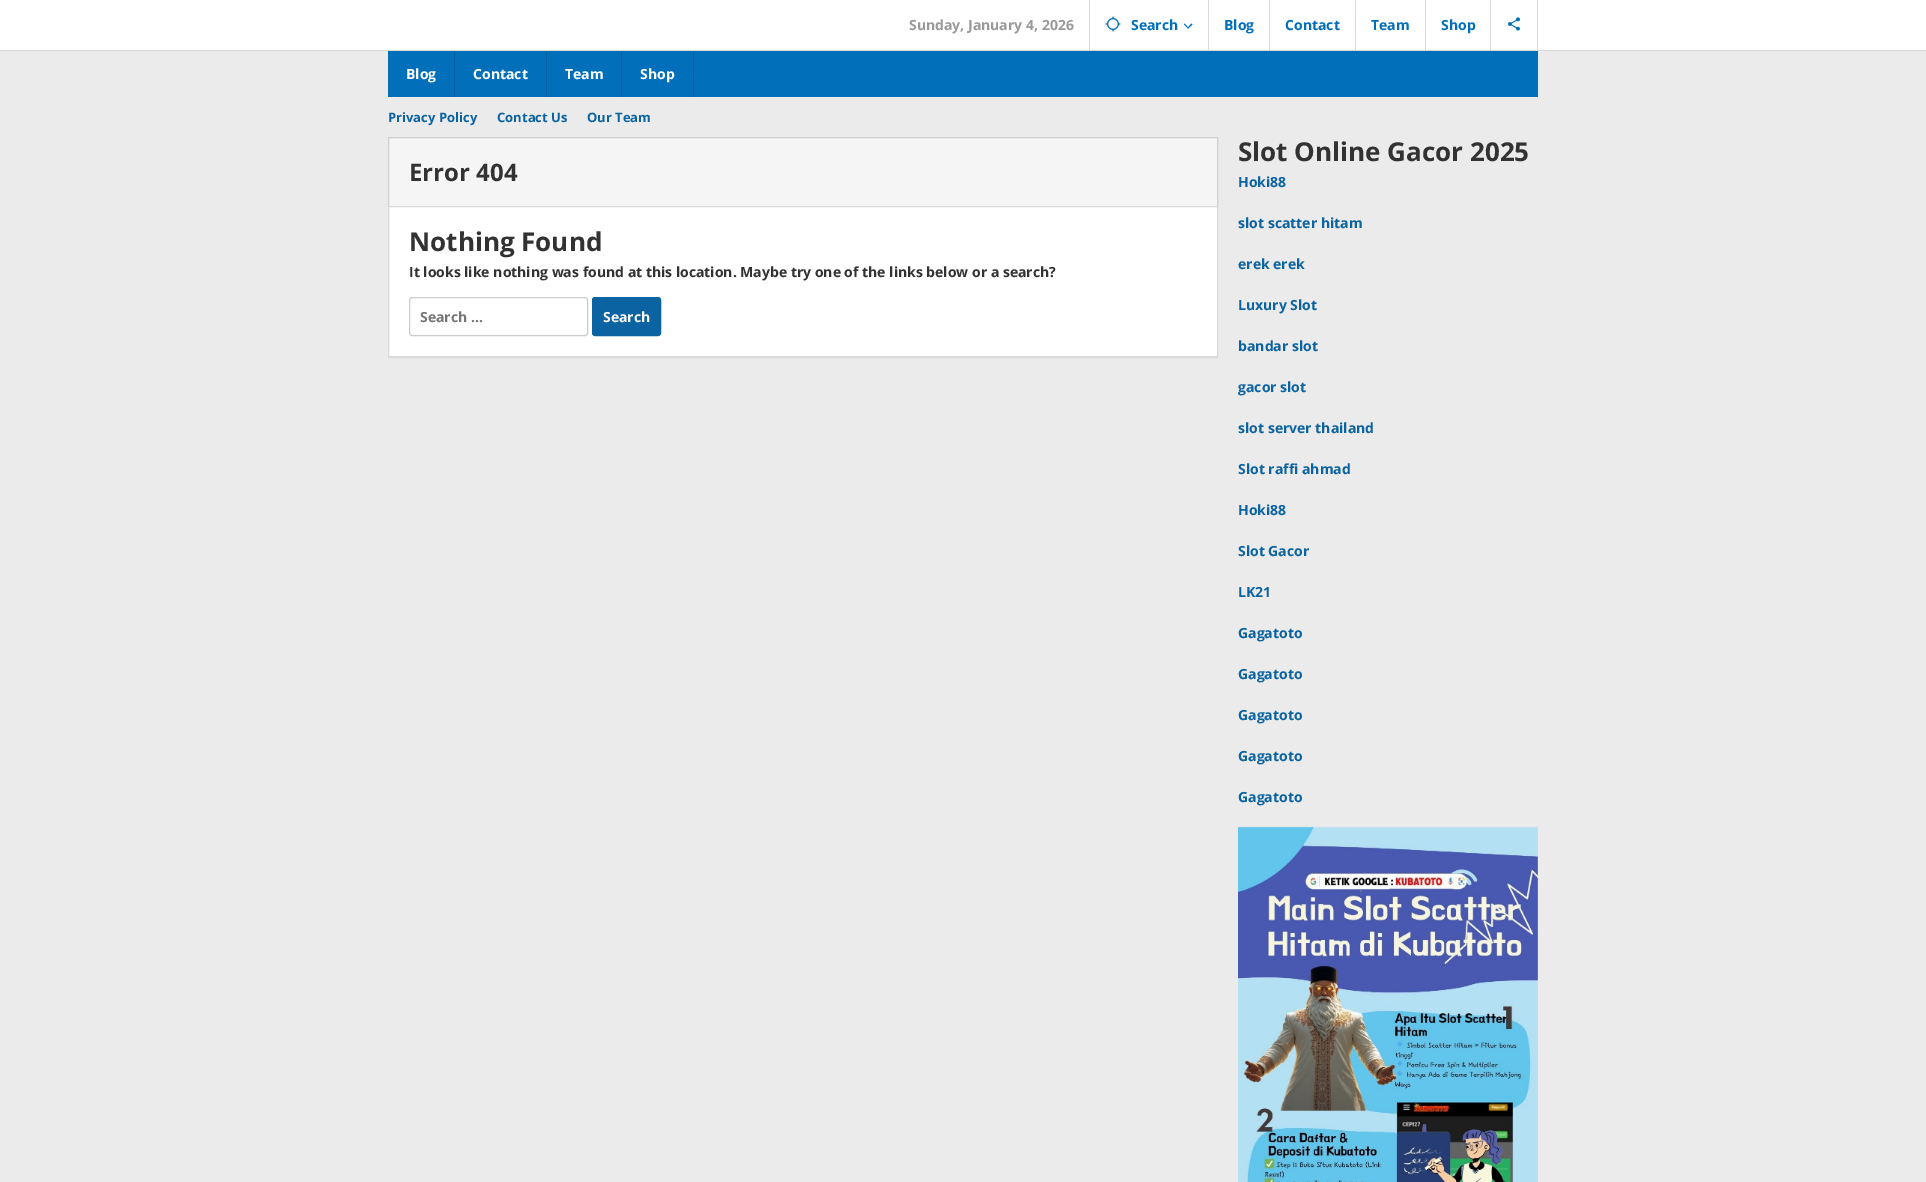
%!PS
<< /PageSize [1926 1182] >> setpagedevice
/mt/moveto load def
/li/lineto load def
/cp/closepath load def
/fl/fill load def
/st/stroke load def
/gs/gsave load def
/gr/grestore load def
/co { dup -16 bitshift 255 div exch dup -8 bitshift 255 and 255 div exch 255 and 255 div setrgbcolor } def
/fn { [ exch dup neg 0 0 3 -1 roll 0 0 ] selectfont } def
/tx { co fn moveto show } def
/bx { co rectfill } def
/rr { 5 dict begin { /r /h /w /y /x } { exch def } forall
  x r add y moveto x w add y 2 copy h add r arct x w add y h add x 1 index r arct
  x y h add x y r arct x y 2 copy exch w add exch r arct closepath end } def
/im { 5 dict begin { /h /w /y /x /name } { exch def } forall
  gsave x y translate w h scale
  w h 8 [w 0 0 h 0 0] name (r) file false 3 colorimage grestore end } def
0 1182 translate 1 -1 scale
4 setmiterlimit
0 0 1926 1182 16#EBEBEB bx
0 0 1926 50 16#FFFFFF bx
0 50 1926 1 16#D9D9D9 bx
1089 0 1 50 16#D9D9D9 bx
1208 0 1 50 16#D9D9D9 bx
(media/1.raw) 1105 16 16 16 im
16#016FBA co
1191.5 23.5 mt 1192.5 24.5 li 1188 28.5 li 1187.5 28 li cp fl
1184.5 23.5 mt 1188.5 28 li 1188 28.5 li 1184 24.5 li cp fl
1269 0 1 50 16#D9D9D9 bx
1355 0 1 50 16#D9D9D9 bx
1425 0 1 50 16#D9D9D9 bx
1490 0 1 50 16#D9D9D9 bx
1537 0 1 50 16#D9D9D9 bx
(media/2.raw) 1508 17 12 14 im
388 51 1150 46 16#016FBA bx
454 51 1 46 16#015E9E bx
546 51 1 46 16#015E9E bx
621 51 1 46 16#015E9E bx
693 51 1 46 16#015E9E bx
16#F5F5F5 co
388.5 137.5 mt 1217.5 137.5 li 1217.5 206.5 li 388.5 206.5 li cp gs fl gr
16#D0D0D0 co
st
389 207 828 149 16#FFFFFF bx
16#D9D9D9 co
388.5 206.5 829 151 rectstroke
389 356 828 1 16#D9D9D9 bx
16#CCCCCC co
409.5 297.5 178 38 2.5 rr st
16#0B63A1 co
592.5 297.5 68 38 2.5 rr gs fl gr
st
(media/3.raw) 1238 826 300 356 im
(Sunday, January 4, 2026) 909 30 /OpenSans-Bold 14 16#999999 tx
(Search) 1131 30 /OpenSans-Bold 14 16#016FBA tx
(Blog) 1224 30 /OpenSans-Bold 14 16#016FBA tx
(Contact) 1285 30 /OpenSans-Bold 14 16#016FBA tx
(Team) 1371 30 /OpenSans-Bold 14 16#016FBA tx
(Shop) 1441 30 /OpenSans-Bold 14 16#016FBA tx
(Blog) 406 79 /OpenSans-Bold 14 16#FFFFFF tx
(Contact) 473 79 /OpenSans-Bold 14 16#FFFFFF tx
(Team) 565 79 /OpenSans-Bold 14 16#FFFFFF tx
(Shop) 640 79 /OpenSans-Bold 14 16#FFFFFF tx
(Privacy Policy) 388 122 /OpenSans-Bold 13 16#0B63A1 tx
(Contact Us) 497 122 /OpenSans-Bold 13 16#0B63A1 tx
(Our Team) 587 122 /OpenSans-Bold 13 16#0B63A1 tx
(Error 404) 409 181 /OpenSans-Bold 24 16#323233 tx
(Nothing Found) 409 251 /OpenSans-Bold 26 16#323233 tx
(It looks like nothing was found at this location. Maybe try one of the links below or a search?) 409 277 /OpenSans-Bold 14 16#323233 tx
(Search …) 420 322 /OpenSans-Bold 14 16#757575 tx
(Search) 603 322 /OpenSans-Bold 14 16#FFFFFF tx
(Slot Online Gacor 2025) 1238 161 /OpenSans-Bold 26 16#323233 tx
(Hoki88) 1238 187 /OpenSans-Bold 14 16#0B63A1 tx
(slot scatter hitam) 1238 228 /OpenSans-Bold 14 16#0B63A1 tx
(erek erek) 1238 269 /OpenSans-Bold 14 16#0B63A1 tx
(Luxury Slot) 1238 310 /OpenSans-Bold 14 16#0B63A1 tx
(bandar slot) 1238 351 /OpenSans-Bold 14 16#0B63A1 tx
(gacor slot) 1238 392 /OpenSans-Bold 14 16#0B63A1 tx
(slot server thailand) 1238 433 /OpenSans-Bold 14 16#0B63A1 tx
(Slot raffi ahmad) 1238 474 /OpenSans-Bold 14 16#0B63A1 tx
(Hoki88) 1238 515 /OpenSans-Bold 14 16#0B63A1 tx
(Slot Gacor) 1238 556 /OpenSans-Bold 14 16#0B63A1 tx
(LK21) 1238 597 /OpenSans-Bold 14 16#0B63A1 tx
(Gagatoto) 1238 638 /OpenSans-Bold 14 16#0B63A1 tx
(Gagatoto) 1238 679 /OpenSans-Bold 14 16#0B63A1 tx
(Gagatoto) 1238 720 /OpenSans-Bold 14 16#0B63A1 tx
(Gagatoto) 1238 761 /OpenSans-Bold 14 16#0B63A1 tx
(Gagatoto) 1238 802 /OpenSans-Bold 14 16#0B63A1 tx
showpage
